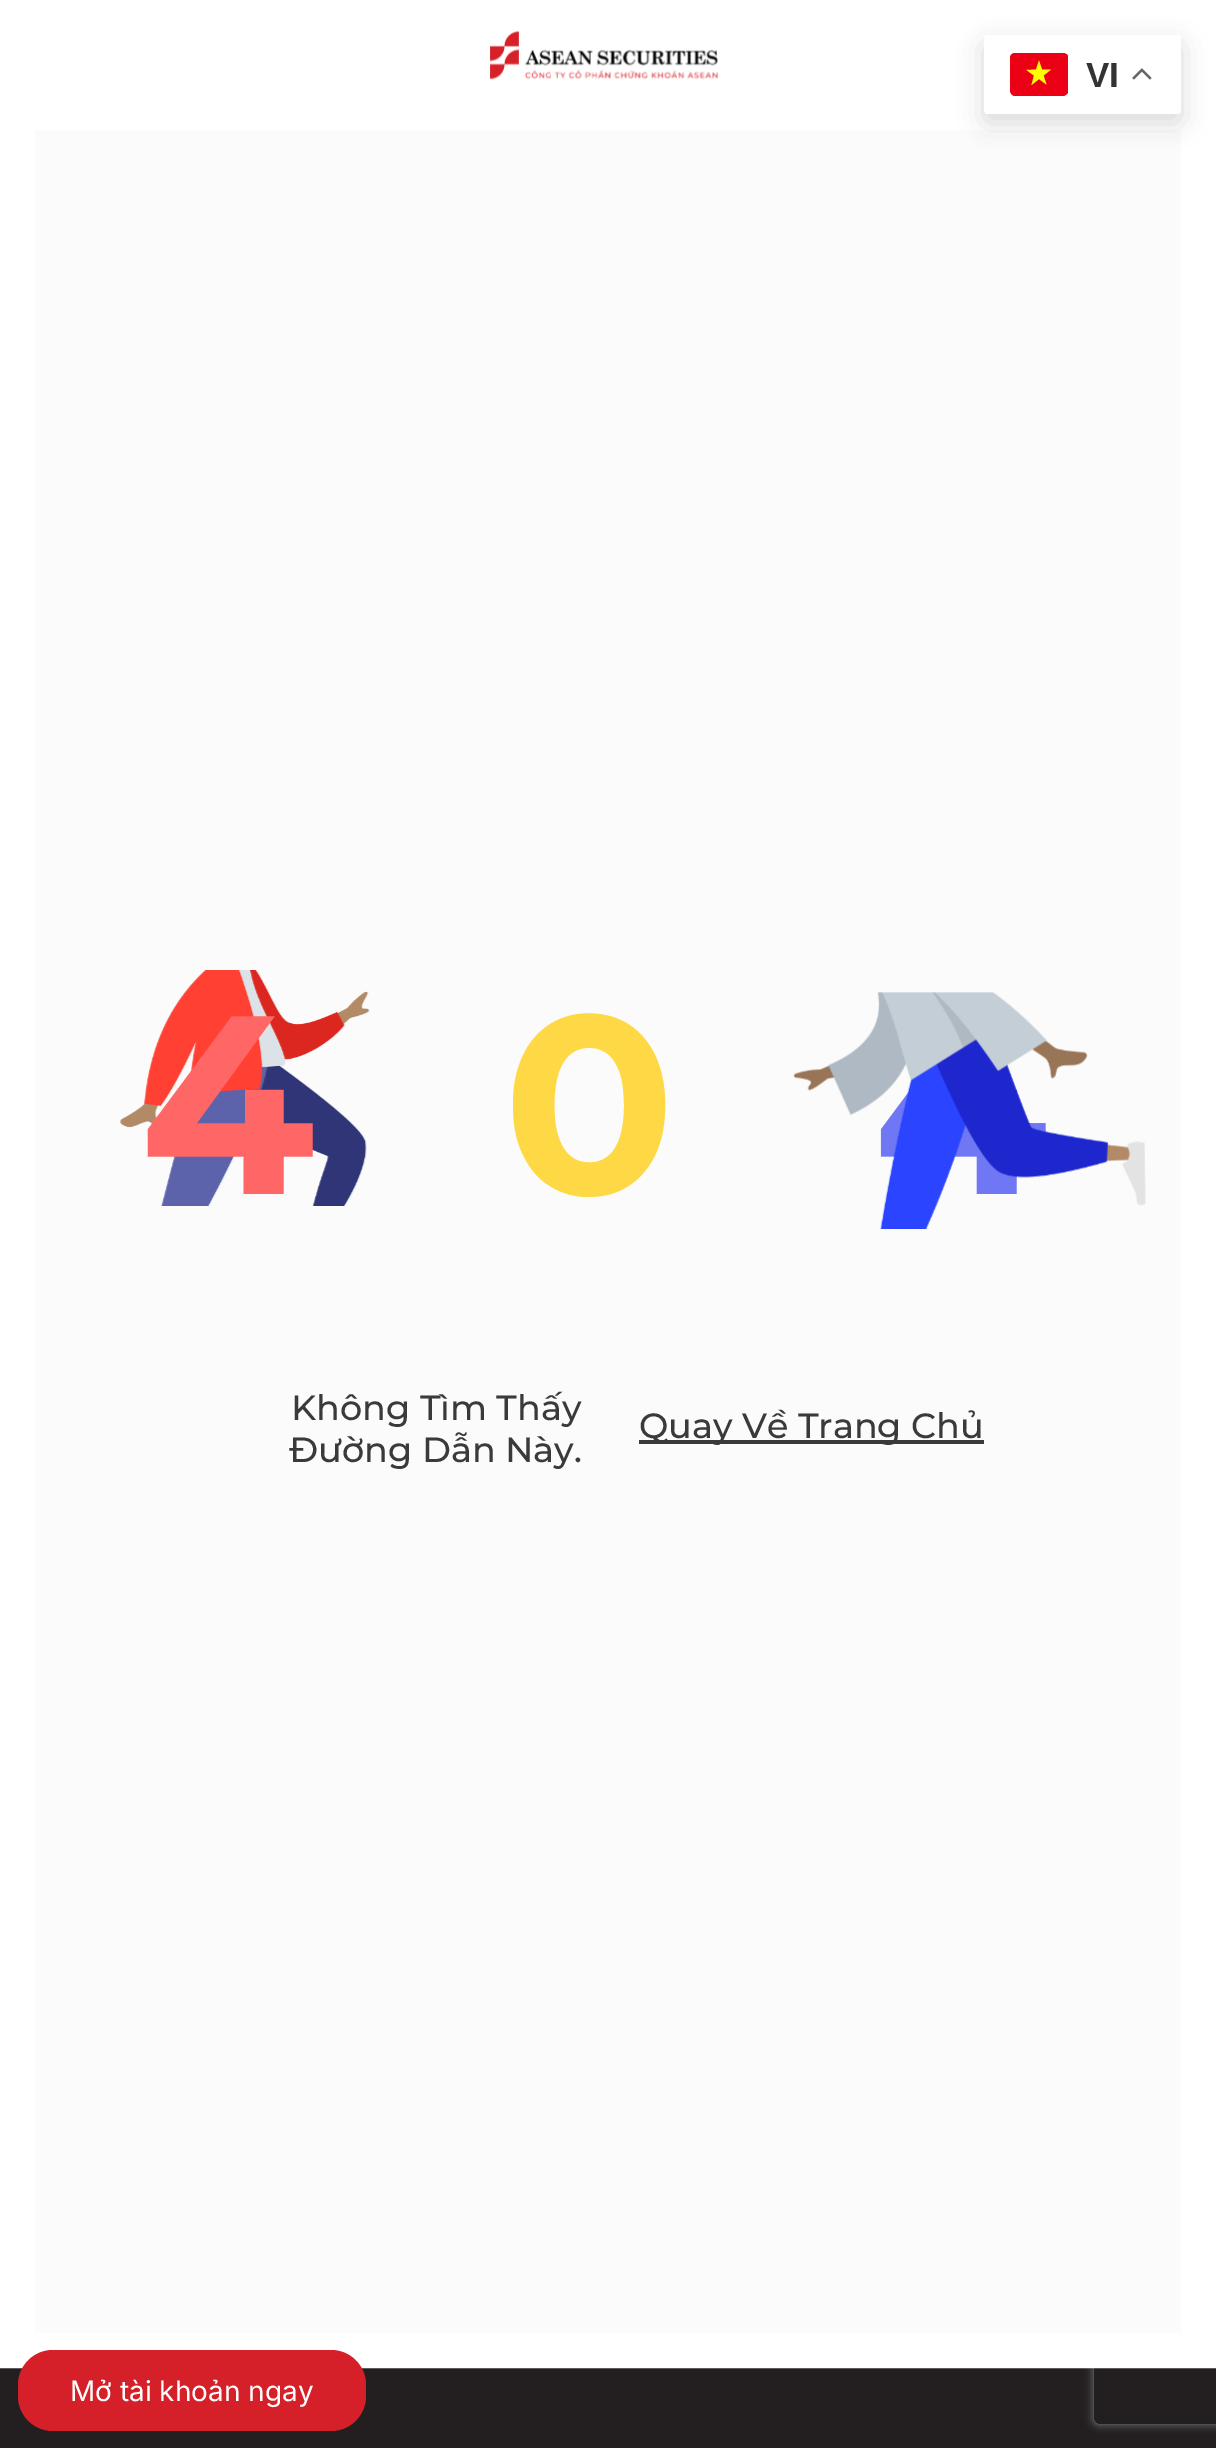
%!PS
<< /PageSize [1216 2448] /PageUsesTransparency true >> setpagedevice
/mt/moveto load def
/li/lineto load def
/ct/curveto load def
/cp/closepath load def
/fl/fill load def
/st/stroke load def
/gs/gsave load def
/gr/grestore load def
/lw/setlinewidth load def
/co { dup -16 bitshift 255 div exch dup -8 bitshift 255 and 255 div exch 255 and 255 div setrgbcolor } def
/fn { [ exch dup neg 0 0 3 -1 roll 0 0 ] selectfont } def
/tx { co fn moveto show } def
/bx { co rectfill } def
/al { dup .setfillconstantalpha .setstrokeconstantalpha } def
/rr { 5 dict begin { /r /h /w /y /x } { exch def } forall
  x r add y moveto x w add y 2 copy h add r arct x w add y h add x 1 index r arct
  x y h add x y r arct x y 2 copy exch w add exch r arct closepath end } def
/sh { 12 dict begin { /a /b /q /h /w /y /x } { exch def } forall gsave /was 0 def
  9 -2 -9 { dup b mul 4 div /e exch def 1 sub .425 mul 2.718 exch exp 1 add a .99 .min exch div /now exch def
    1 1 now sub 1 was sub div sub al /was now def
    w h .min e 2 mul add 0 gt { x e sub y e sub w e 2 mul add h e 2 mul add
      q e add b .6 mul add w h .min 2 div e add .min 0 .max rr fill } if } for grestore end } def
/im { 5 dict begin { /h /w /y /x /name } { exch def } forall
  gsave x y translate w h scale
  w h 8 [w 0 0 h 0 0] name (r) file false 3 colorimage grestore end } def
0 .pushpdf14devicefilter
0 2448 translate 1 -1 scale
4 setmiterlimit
0 0 1216 2448 16#231F20 bx
0 0 1216 95 16#FFFFFF bx
(media/1.raw) 490 31 228 49 im
gs
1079 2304 mt 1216 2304 li 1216 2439 li 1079 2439 li cp 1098 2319 mt 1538 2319 li 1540 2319 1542 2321 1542 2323 ct 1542 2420 li 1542 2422 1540 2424 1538 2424 ct 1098 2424 li 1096 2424 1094 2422 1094 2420 ct 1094 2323 li 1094 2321 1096 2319 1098 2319 ct cp eoclip newpath
16#808080 co
1094 2319 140 105 4 4.5 1 sh
gr
16#FBFBFB co
17.5 112.5 mt 1198.5 112.5 li 1198.5 2350.5 li 17.5 2350.5 li cp gs fl gr
16#FFFFFF co
35 lw
st
16#000000 co
984 44 197 79 4 13 .15 sh
16#FFFFFF co
984 35 197 79 4 rr fl
16#EC0015 co
1015 53 mt 1063 53 li 1065 53 1067 54 1068 56 ct 1068 93 li 1067 94 1066 95 1064 96 ct 1014 96 li 1012 95 1010 93 1010 91 ct 1010 58 li 1010 55 1012 53 1015 53 ct cp fl
16#FFFF00 co
1046.5 84.5 mt 1039 79 li 1031.5 85 li 1034 75.5 li 1026.5 70 li 1036 69.5 li 1039 60.5 li 1042 69.5 li 1051 69.5 li 1043.5 75.5 li cp eofill
(media/2.raw) 1132 68 20 12 im
(media/3.raw) 120 970 250 236 im
(media/4.raw) 793 992 353 237 im
639 1440 345 4 16#3A3A3A bx
16#D51F29 co
18 2350 348 81 35 rr fl
(VI) 1086 87 /LiberationSans-Bold 35 16#333333 tx
(4) 140 1194 /Montserrat-Bold 254 16#FF6666 tx
(0) 503 1194 /Montserrat-Bold 254 16#FFD845 tx
(Không Tìm Thấy) 291 1420 /Montserrat-Medium 35 16#3A3A3A tx
(Đường Dẫn Này.) 289 1462 /Montserrat-Medium 35 16#3A3A3A tx
(Quay Về Trang Chủ) 639 1438 /Montserrat-Medium 35 16#3A3A3A tx
(Mở tài khoản ngay) 70 2401 /Inter-Regular 28 16#FFFFFF tx
.poppdf14devicefilter showpage
